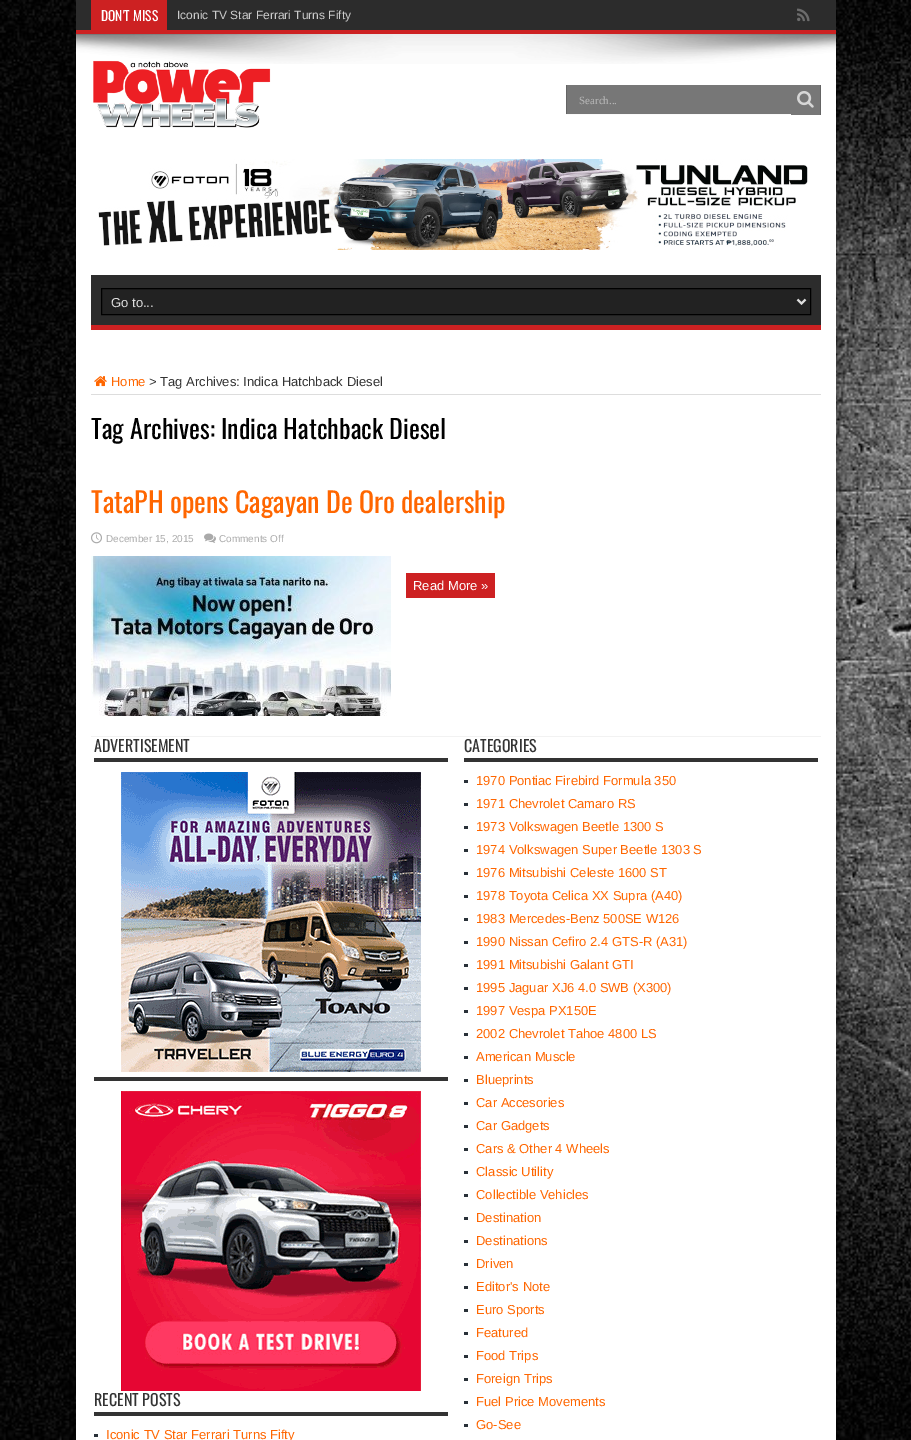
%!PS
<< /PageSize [911 1440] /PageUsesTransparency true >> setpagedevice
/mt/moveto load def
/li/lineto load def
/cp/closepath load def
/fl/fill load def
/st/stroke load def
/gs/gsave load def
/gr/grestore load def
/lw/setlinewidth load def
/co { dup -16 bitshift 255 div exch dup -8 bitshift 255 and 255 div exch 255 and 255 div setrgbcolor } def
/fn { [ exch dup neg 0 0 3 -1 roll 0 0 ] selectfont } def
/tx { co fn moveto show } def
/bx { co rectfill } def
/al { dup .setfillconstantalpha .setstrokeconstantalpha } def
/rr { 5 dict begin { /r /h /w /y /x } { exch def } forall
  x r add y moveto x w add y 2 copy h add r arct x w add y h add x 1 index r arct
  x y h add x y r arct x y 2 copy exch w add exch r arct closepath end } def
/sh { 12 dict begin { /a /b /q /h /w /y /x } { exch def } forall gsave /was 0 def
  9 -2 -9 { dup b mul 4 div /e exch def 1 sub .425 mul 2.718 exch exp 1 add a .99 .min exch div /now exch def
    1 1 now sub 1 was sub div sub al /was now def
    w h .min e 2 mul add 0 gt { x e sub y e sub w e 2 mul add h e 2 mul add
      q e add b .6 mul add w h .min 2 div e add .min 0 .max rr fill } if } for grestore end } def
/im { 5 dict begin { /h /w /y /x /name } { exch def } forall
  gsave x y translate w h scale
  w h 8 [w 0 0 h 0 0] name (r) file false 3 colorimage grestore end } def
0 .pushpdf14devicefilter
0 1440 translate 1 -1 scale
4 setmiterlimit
0 0 911 1440 16#FFFFFF bx
(media/1.raw) 0 0 911 1440 im
16#000000 co
76 0 760 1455 0 5 .5 sh
76 34 760 1406 16#FFFFFF bx
76 0 760 30 16#2C2C2C bx
76 30 760 4 16#CD2122 bx
91 0 76 30 16#CD2122 bx
(media/2.raw) 797 8 13 14 im
566 114 225 1 16#FAFAFA bx
567 85 224 29 16#777777 bx
566 85 1 29 16#646464 bx
791 85 29 30 16#777777 bx
820 85 1 30 16#646464 bx
(media/3.raw) 797 91 17 17 im
(media/4.raw) 76 34 760 30 im
(media/5.raw) 93 60 178 68 im
(media/6.raw) 98 159 710 91 im
91 275 730 50 16#2C2C2C bx
91 325 730 5 16#CD2122 bx
16#222222 co
101.5 288.5 mt 810.5 288.5 li 810.5 314.5 li 101.5 314.5 li cp gs fl gr
16#000000 co
st
16#DDDDDD co
2 lw
797.5 299.5 mt 801.5 303.5 li 805.5 299.5 li st
91 394 730 1 16#DDDDDD bx
(media/7.raw) 94 376 13 11 im
91 736 730 1 16#F2F2F2 bx
(media/8.raw) 91 532 11 12 im
(media/9.raw) 204 533 12 10 im
(media/10.raw) 91 556 300 160 im
406 573 89 25 16#CD2122 bx
94 758 354 4 16#333333 bx
(media/11.raw) 121 772 300 300 im
464 758 354 4 16#333333 bx
464 780 4 3 16#293138 bx
464 803 4 3 16#293138 bx
464 826 4 3 16#293138 bx
464 849 4 3 16#293138 bx
464 872 4 3 16#293138 bx
464 895 4 3 16#293138 bx
464 918 4 3 16#293138 bx
464 941 4 3 16#293138 bx
464 964 4 3 16#293138 bx
464 987 4 3 16#293138 bx
464 1010 4 3 16#293138 bx
464 1033 4 3 16#293138 bx
464 1056 4 3 16#293138 bx
464 1079 4 3 16#293138 bx
464 1102 4 3 16#293138 bx
464 1125 4 3 16#293138 bx
464 1148 4 3 16#293138 bx
464 1171 4 3 16#293138 bx
464 1194 4 3 16#293138 bx
464 1217 4 3 16#293138 bx
464 1240 4 3 16#293138 bx
464 1263 4 3 16#293138 bx
464 1286 4 3 16#293138 bx
464 1309 4 3 16#293138 bx
464 1332 4 3 16#293138 bx
464 1355 4 3 16#293138 bx
464 1378 4 3 16#293138 bx
464 1401 4 3 16#293138 bx
464 1424 4 3 16#293138 bx
94 1077 354 4 16#333333 bx
(media/12.raw) 121 1091 300 300 im
94 1412 354 4 16#333333 bx
94 1434 4 3 16#293138 bx
(DON'T MISS) 101 21 /Oswald-Regular 13.5 16#FFFFFF tx
(Iconic TV Star Ferrari Turns Fifty) 177 19 /LiberationSans-Regular 12 16#CCCCCC tx
(Search...) 579 104 /LiberationSerif-Regular 11 16#B8B8B8 tx
(Go to...) 111 307 /LiberationSans-Regular 13 16#DDDDDD tx
(Home) 111 386 /LiberationSans-Regular 13 16#FF6600 tx
(> Tag Archives: Indica Hatchback Diesel) 149 386 /LiberationSans-Regular 13 16#333333 tx
(Tag Archives: Indica Hatchback Diesel) 91 439 /Oswald-Regular 26 16#000000 tx
(TataPH opens Cagayan De Oro dealership) 91 513 /Oswald-Regular 28 16#FF6600 tx
(December 15, 2015) 106 542 /LiberationSans-Regular 10 16#AAAAAA tx
(Comments Off) 219 542 /LiberationSans-Regular 10 16#AAAAAA tx
(Read More ») 413 590 /LiberationSans-Regular 13 16#FFFFFF tx
(ADVERTISEMENT) 94 752 /Oswald-Regular 16 16#333333 tx
(CATEGORIES) 464 752 /Oswald-Regular 16 16#333333 tx
(1970 Pontiac Firebird Formula 350) 476 785 /LiberationSans-Regular 13 16#FF6600 tx
(1971 Chevrolet Camaro RS) 476 808 /LiberationSans-Regular 13 16#FF6600 tx
(1973 Volkswagen Beetle 1300 S) 476 831 /LiberationSans-Regular 13 16#FF6600 tx
(1974 Volkswagen Super Beetle 1303 S) 476 854 /LiberationSans-Regular 13 16#FF6600 tx
(1976 Mitsubishi Celeste 1600 ST) 476 877 /LiberationSans-Regular 13 16#FF6600 tx
(1978 Toyota Celica XX Supra \(A40\)) 476 900 /LiberationSans-Regular 13 16#FF6600 tx
(1983 Mercedes-Benz 500SE W126) 476 923 /LiberationSans-Regular 13 16#FF6600 tx
(1990 Nissan Cefiro 2.4 GTS-R \(A31\)) 476 946 /LiberationSans-Regular 13 16#FF6600 tx
(1991 Mitsubishi Galant GTI) 476 969 /LiberationSans-Regular 13 16#FF6600 tx
(1995 Jaguar XJ6 4.0 SWB \(X300\)) 476 992 /LiberationSans-Regular 13 16#FF6600 tx
(1997 Vespa PX150E) 476 1015 /LiberationSans-Regular 13 16#FF6600 tx
(2002 Chevrolet Tahoe 4800 LS) 476 1038 /LiberationSans-Regular 13 16#FF6600 tx
(American Muscle) 476 1061 /LiberationSans-Regular 13 16#FF6600 tx
(Blueprints) 476 1084 /LiberationSans-Regular 13 16#FF6600 tx
(Car Accesories) 476 1107 /LiberationSans-Regular 13 16#FF6600 tx
(Car Gadgets) 476 1130 /LiberationSans-Regular 13 16#FF6600 tx
(Cars & Other 4 Wheels) 476 1153 /LiberationSans-Regular 13 16#FF6600 tx
(Classic Utility) 476 1176 /LiberationSans-Regular 13 16#FF6600 tx
(Collectible Vehicles) 476 1199 /LiberationSans-Regular 13 16#FF6600 tx
(Destination) 476 1222 /LiberationSans-Regular 13 16#FF6600 tx
(Destinations) 476 1245 /LiberationSans-Regular 13 16#FF6600 tx
(Driven) 476 1268 /LiberationSans-Regular 13 16#FF6600 tx
(Editor's Note) 476 1291 /LiberationSans-Regular 13 16#FF6600 tx
(Euro Sports) 476 1314 /LiberationSans-Regular 13 16#FF6600 tx
(Featured) 476 1337 /LiberationSans-Regular 13 16#FF6600 tx
(Food Trips) 476 1360 /LiberationSans-Regular 13 16#FF6600 tx
(Foreign Trips) 476 1383 /LiberationSans-Regular 13 16#FF6600 tx
(Fuel Price Movements) 476 1406 /LiberationSans-Regular 13 16#FF6600 tx
(Go-See) 476 1429 /LiberationSans-Regular 13 16#FF6600 tx
(RECENT POSTS) 94 1406 /Oswald-Regular 16 16#333333 tx
(Iconic TV Star Ferrari Turns Fifty) 106 1439 /LiberationSans-Regular 13 16#FF6600 tx
.poppdf14devicefilter showpage
